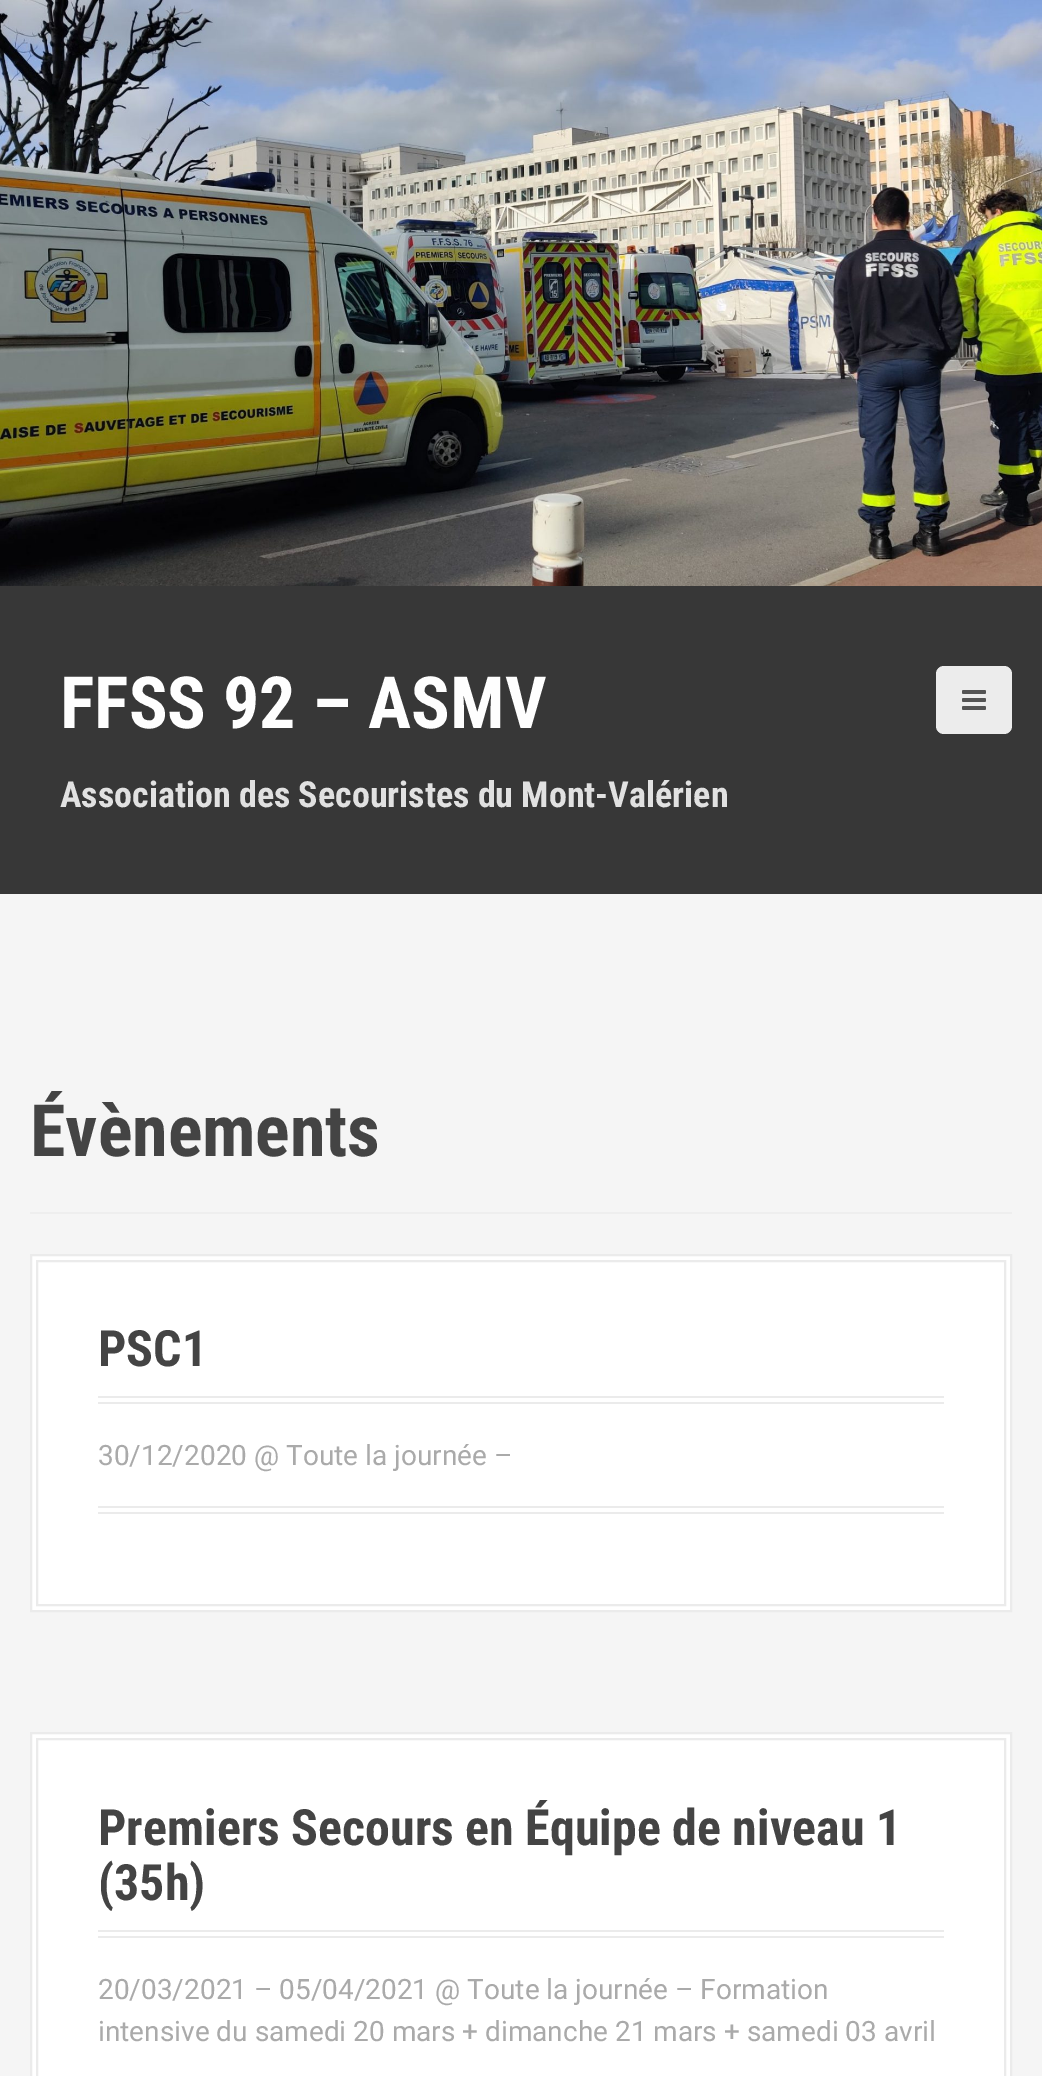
%!PS
<< /PageSize [1042 2076] >> setpagedevice
/mt/moveto load def
/li/lineto load def
/cp/closepath load def
/fl/fill load def
/st/stroke load def
/gs/gsave load def
/gr/grestore load def
/lw/setlinewidth load def
/co { dup -16 bitshift 255 div exch dup -8 bitshift 255 and 255 div exch 255 and 255 div setrgbcolor } def
/fn { [ exch dup neg 0 0 3 -1 roll 0 0 ] selectfont } def
/tx { co fn moveto show } def
/bx { co rectfill } def
/rr { 5 dict begin { /r /h /w /y /x } { exch def } forall
  x r add y moveto x w add y 2 copy h add r arct x w add y h add x 1 index r arct
  x y h add x y r arct x y 2 copy exch w add exch r arct closepath end } def
/im { 5 dict begin { /h /w /y /x /name } { exch def } forall
  gsave x y translate w h scale
  w h 8 [w 0 0 h 0 0] name (r) file false 3 colorimage grestore end } def
0 2076 translate 1 -1 scale
4 setmiterlimit
0 0 1042 2076 16#F5F5F5 bx
(media/1.raw) 0 0 1042 586 im
0 586 1042 308 16#373737 bx
16#ECECEC co
936 666 76 68 8 rr fl
(media/2.raw) 962 690 24 20 im
30 1212 982 2 16#EEEEEE bx
16#FFFFFF co
31 1255 mt 1011 1255 li 1011 1611 li 31 1611 li cp gs fl gr
16#EBEBEB co
2 lw
st
37 1261 968 344 rectstroke
98 1396 846 2 16#EBEBEB bx
98 1402 846 2 16#EBEBEB bx
98 1506 846 2 16#EBEBEB bx
98 1512 846 2 16#EBEBEB bx
16#FFFFFF co
31 1733 mt 1011 1733 li 1011 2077 li 31 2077 li cp gs fl gr
16#EBEBEB co
st
37 1739 968 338 rectstroke
98 1930 846 2 16#EBEBEB bx
98 1936 846 2 16#EBEBEB bx
(FFSS 92 – ASMV) 60 728 /RobotoCondensed-Bold 72 16#FEFEFE tx
(Association des Secouristes du Mont-Valérien) 60 807 /RobotoCondensed-Bold 36 16#E1E1E1 tx
(Évènements) 30 1156 /RobotoCondensed-Bold 72 16#444444 tx
(PSC1) 98 1366 /RobotoCondensed-Bold 50 16#444444 tx
(30/12/2020 @ Toute la journée –) 98 1465 /Roboto-Regular 28 16#AAAAAA tx
(Premiers Secours en Équipe de niveau 1) 98 1845 /RobotoCondensed-Bold 50 16#444444 tx
(\(35h\)) 98 1900 /RobotoCondensed-Bold 50 16#444444 tx
(20/03/2021 – 05/04/2021 @ Toute la journée – Formation) 98 1999 /Roboto-Regular 28 16#AAAAAA tx
(intensive du samedi 20 mars + dimanche 21 mars + samedi 03 avril) 98 2041 /Roboto-Regular 28 16#AAAAAA tx
showpage
